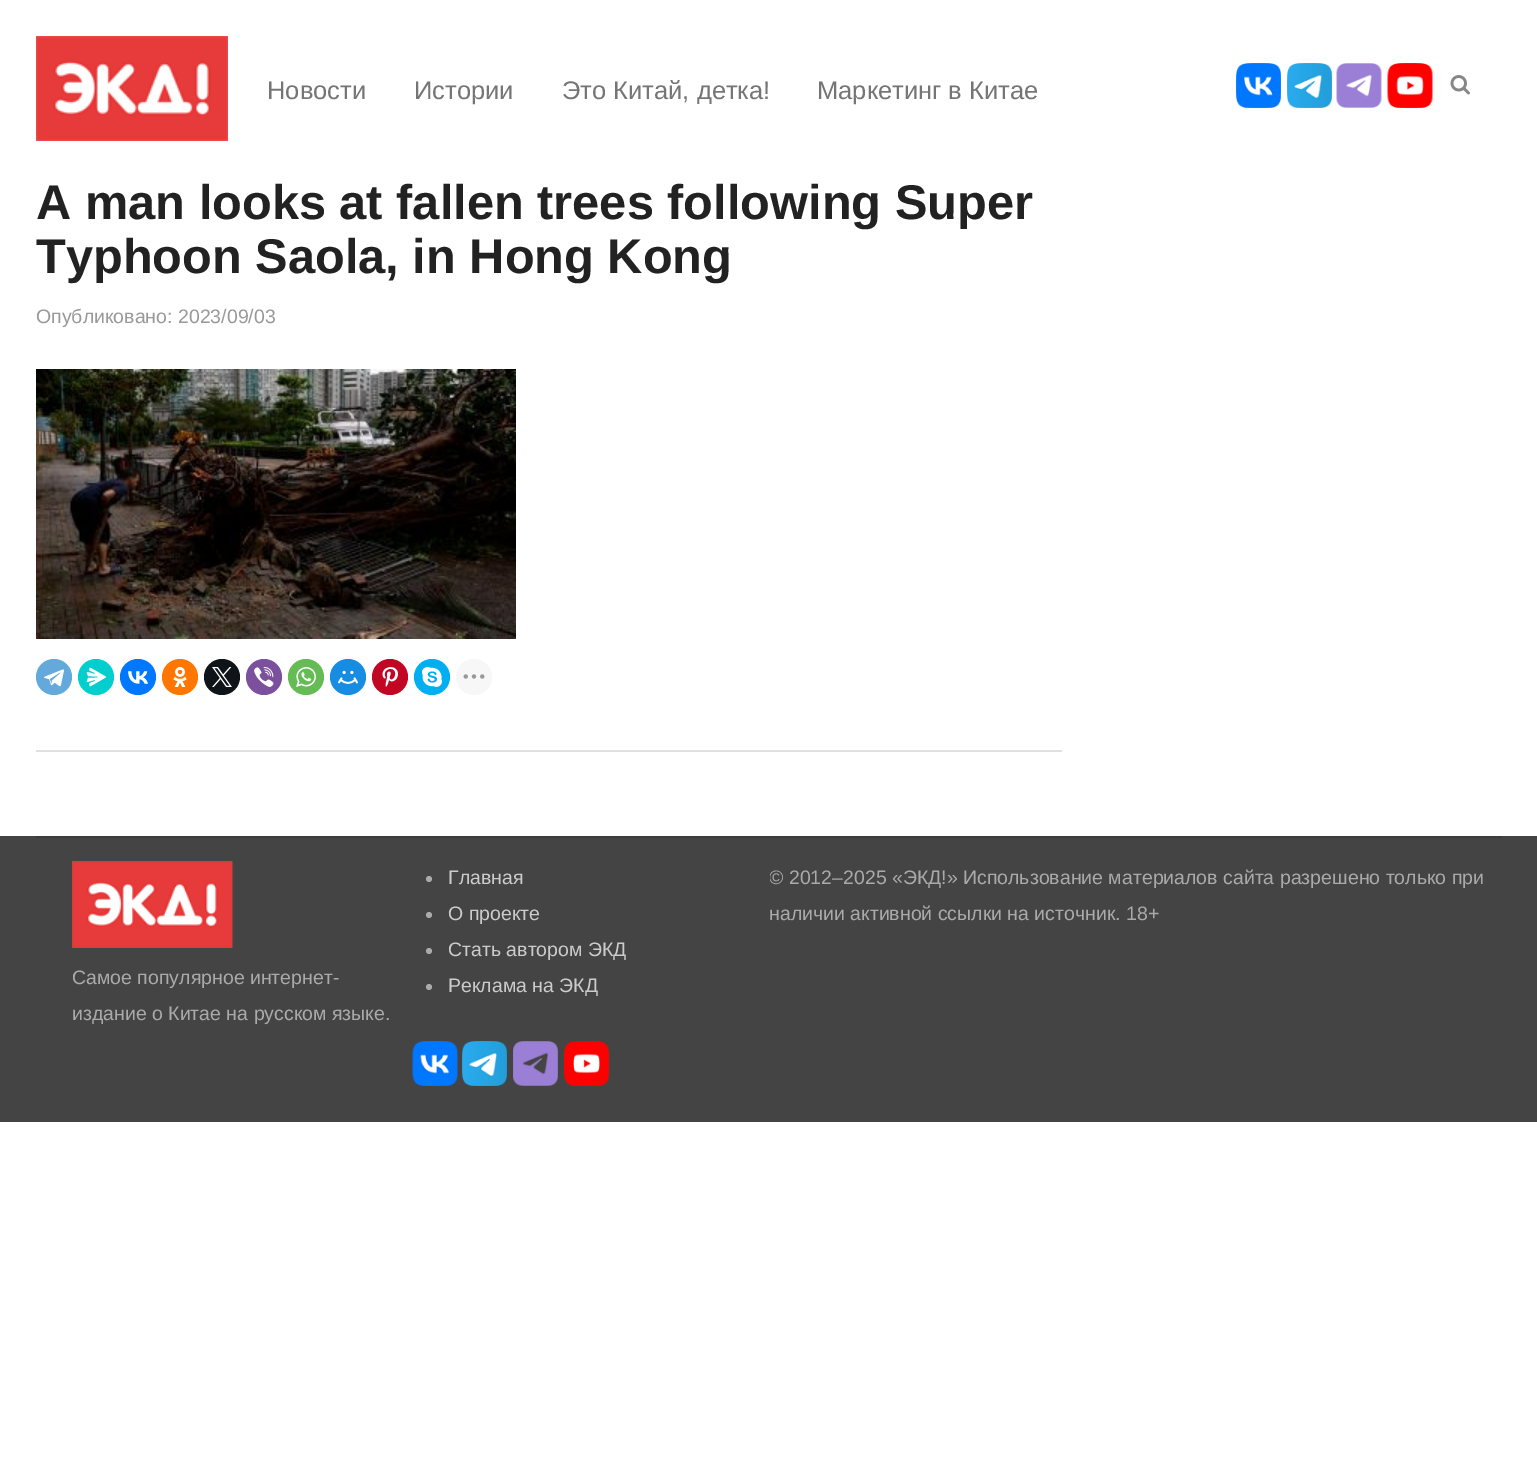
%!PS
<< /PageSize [1537 1469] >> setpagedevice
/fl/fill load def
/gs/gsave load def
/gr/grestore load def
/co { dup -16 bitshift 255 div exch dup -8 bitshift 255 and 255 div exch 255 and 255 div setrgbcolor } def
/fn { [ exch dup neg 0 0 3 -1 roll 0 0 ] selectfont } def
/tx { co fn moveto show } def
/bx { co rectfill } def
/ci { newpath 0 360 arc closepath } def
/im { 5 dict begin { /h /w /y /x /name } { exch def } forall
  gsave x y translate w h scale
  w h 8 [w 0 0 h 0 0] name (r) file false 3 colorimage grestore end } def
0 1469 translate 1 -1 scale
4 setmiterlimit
0 0 1537 1469 16#FFFFFF bx
(media/1.raw) 36 36 192 105 im
(media/2.raw) 1236 63 45 45 im
(media/3.raw) 1287 63 45 45 im
(media/4.raw) 1336 63 46 45 im
(media/5.raw) 1387 63 46 45 im
(media/6.raw) 1450 75 20 20 im
36 750 1026 2 16#E0E0E0 bx
(media/7.raw) 36 369 480 270 im
16#64A9DC co
54 677 18 ci fl
(media/8.raw) 44 669 20 18 im
16#03CECE co
96 677 18 ci fl
(media/9.raw) 86 667 20 20 im
16#0077FF co
138 677 18 ci fl
(media/10.raw) 128 671 20 13 im
16#FF7700 co
180 677 18 ci fl
(media/11.raw) 173 667 14 20 im
16#0F1419 co
222 677 18 ci fl
(media/12.raw) 212 667 20 20 im
16#7B519D co
264 677 18 ci fl
(media/13.raw) 254 667 20 20 im
16#65BC54 co
306 677 18 ci fl
(media/14.raw) 296 667 20 20 im
16#168DE2 co
348 677 18 ci fl
(media/15.raw) 338 670 20 14 im
16#C20724 co
390 677 18 ci fl
(media/16.raw) 382 667 16 20 im
16#00AFF0 co
432 677 18 ci fl
(media/17.raw) 422 667 20 20 im
16#F7F7F7 co
474 677 18 ci fl
(media/18.raw) 463 674 22 5 im
0 836 1537 286 16#444444 bx
36 836 1466 2 16#3C3C3C bx
(media/19.raw) 72 861 161 87 im
16#AAAAAA co
429 879 3 ci fl
429 915 3 ci fl
429 951 3 ci fl
429 987 3 ci fl
(media/20.raw) 412 1041 46 45 im
(media/21.raw) 462 1041 45 45 im
(media/22.raw) 513 1041 45 45 im
(media/23.raw) 564 1041 45 45 im
(Новости) 267 99 /LiberationSans-Regular 25.5 16#757575 tx
(Истории) 414 99 /LiberationSans-Regular 25.5 16#757575 tx
(Это Китай, детка!) 562 99 /LiberationSans-Regular 25.5 16#757575 tx
(Маркетинг в Китае) 817 99 /LiberationSans-Regular 25.5 16#757575 tx
(A man looks at fallen trees following Super) 36 219 /LiberationSans-Bold 48.75 16#222222 tx
(Typhoon Saola, in Hong Kong) 36 273 /LiberationSans-Bold 48.75 16#222222 tx
(Опубликовано: 2023/09/03) 36 323 /LiberationSans-Regular 19.5 16#999999 tx
(Самое популярное интернет-) 72 984 /LiberationSans-Regular 19.5 16#AAAAAA tx
(издание о Китае на русском языке.) 72 1020 /LiberationSans-Regular 19.5 16#AAAAAA tx
(Главная) 448 884 /LiberationSans-Regular 19.5 16#CCCCCC tx
(О проекте) 448 920 /LiberationSans-Regular 19.5 16#CCCCCC tx
(Стать автором ЭКД) 448 956 /LiberationSans-Regular 19.5 16#CCCCCC tx
(Реклама на ЭКД) 448 992 /LiberationSans-Regular 19.5 16#CCCCCC tx
gs
770 861 732 72 rectclip
(© 2012–2025 «ЭКД!» Использование материалов сайта разрешено только при) 769 884 /LiberationSans-Regular 19.5 16#AAAAAA tx
gr
(наличии активной ссылки на источник. 18+) 769 920 /LiberationSans-Regular 19.5 16#AAAAAA tx
showpage
